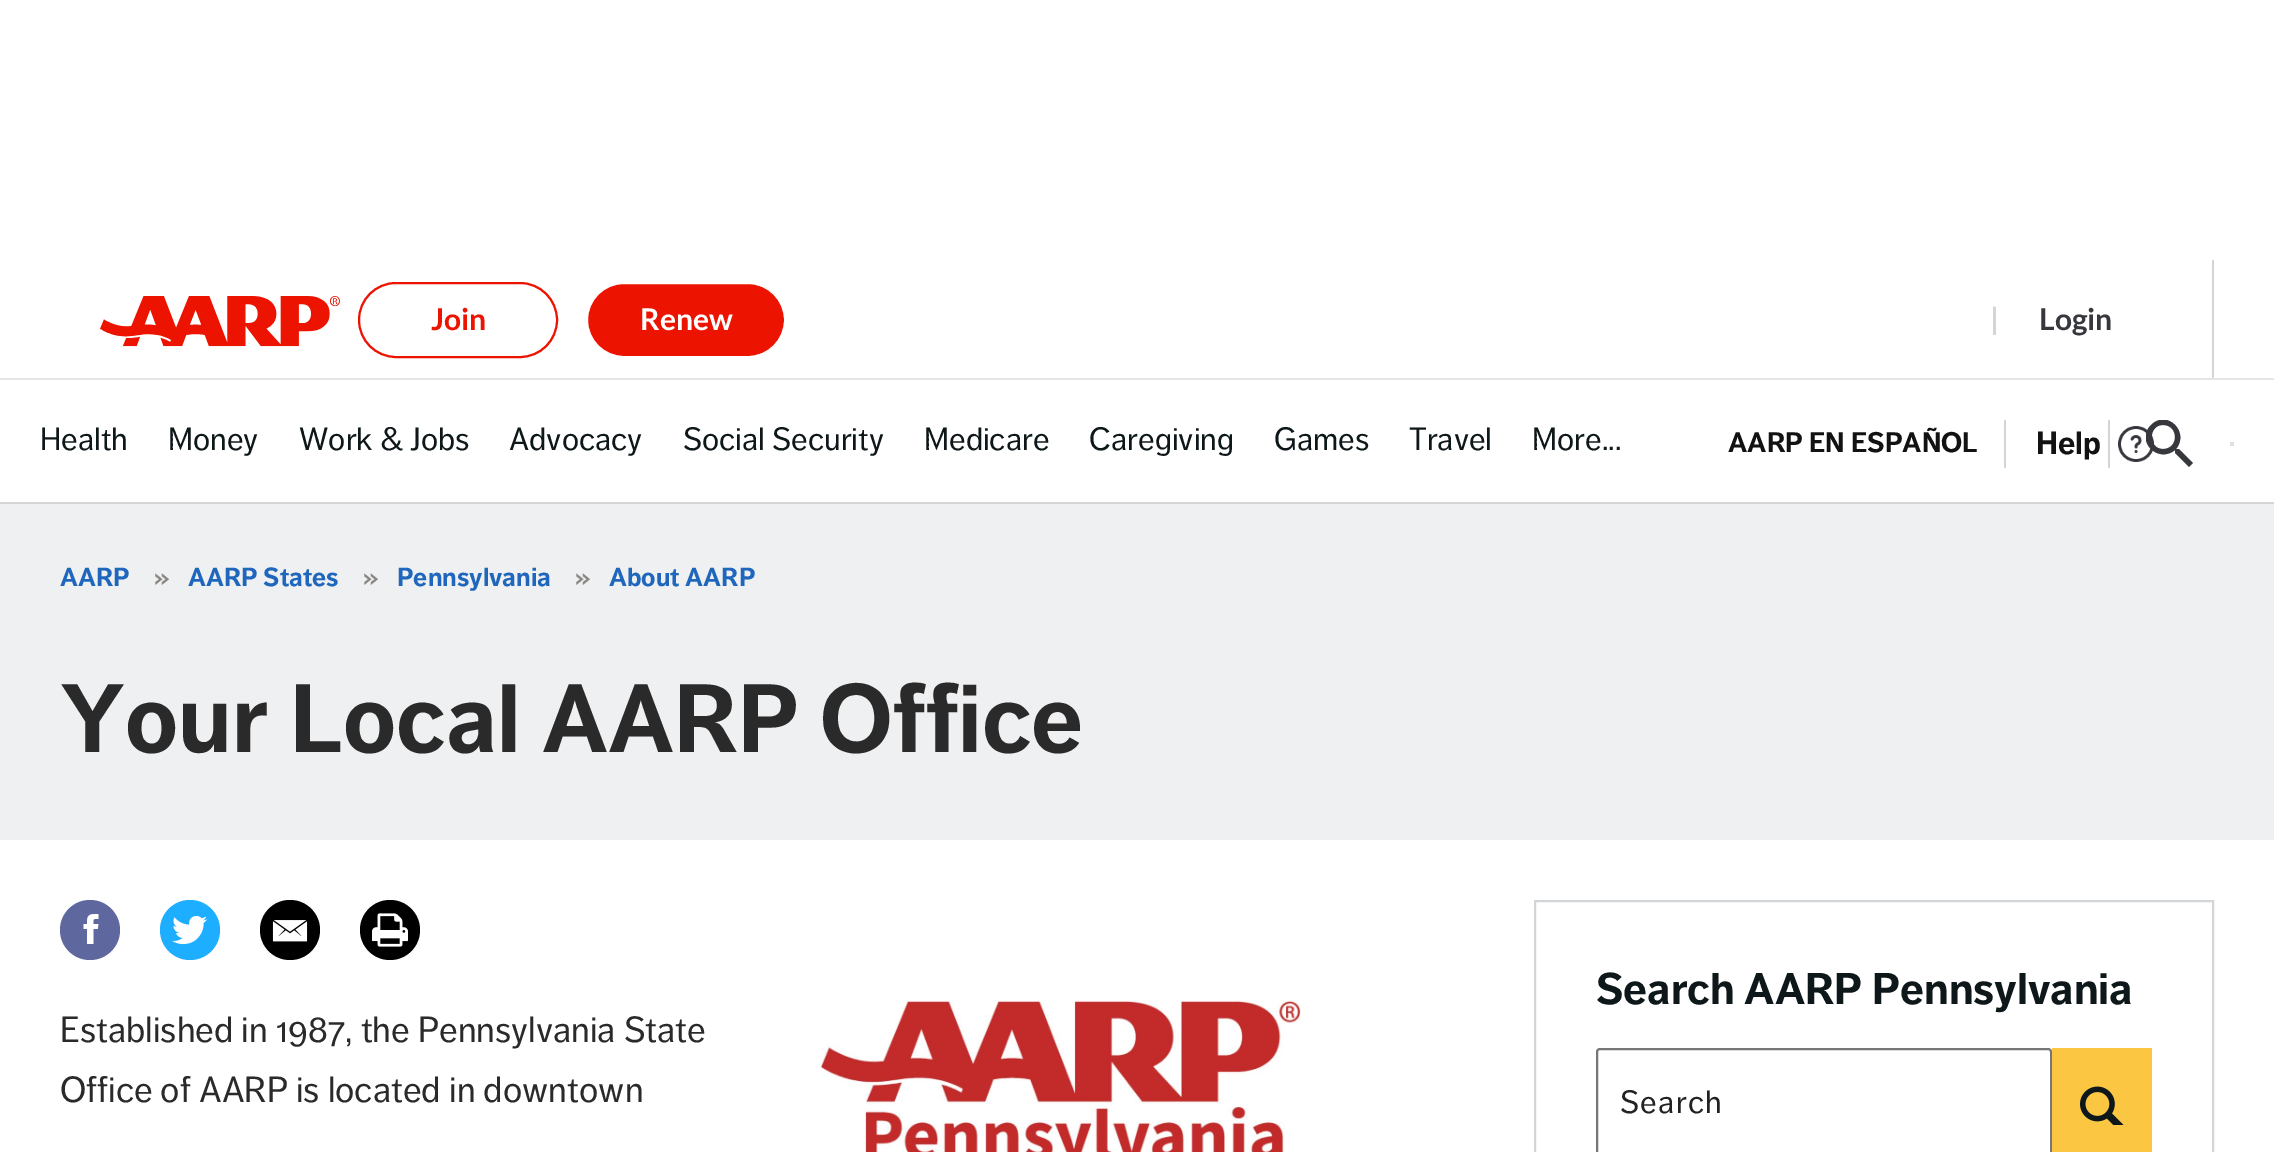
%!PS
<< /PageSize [2274 1152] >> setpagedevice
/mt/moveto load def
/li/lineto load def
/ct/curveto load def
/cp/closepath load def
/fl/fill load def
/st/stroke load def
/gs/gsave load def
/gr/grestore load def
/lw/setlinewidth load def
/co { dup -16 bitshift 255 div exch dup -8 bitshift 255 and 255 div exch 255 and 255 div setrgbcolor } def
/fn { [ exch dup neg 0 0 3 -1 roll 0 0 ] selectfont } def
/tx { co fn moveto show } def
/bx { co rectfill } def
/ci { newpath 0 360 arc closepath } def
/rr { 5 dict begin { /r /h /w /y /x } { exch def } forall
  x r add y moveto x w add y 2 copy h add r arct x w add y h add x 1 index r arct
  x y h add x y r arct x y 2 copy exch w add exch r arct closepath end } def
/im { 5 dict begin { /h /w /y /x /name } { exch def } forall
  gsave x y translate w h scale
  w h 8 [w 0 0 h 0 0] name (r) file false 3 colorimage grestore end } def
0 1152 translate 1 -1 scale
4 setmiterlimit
0 0 2274 1152 16#FFFFFF bx
0 378 2274 2 16#E5E5E5 bx
(media/1.raw) 100 296 240 51 im
16#EC1300 co
2 lw
359 283 198 74 37 rr st
587 283 198 74 37 rr gs fl gr
16#FFFFFF co
st
2212 260 2 118 16#D5D5D5 bx
0 502 2274 2 16#D5D5D5 bx
2108 420 2 48 16#D5D5D5 bx
2004 420 2 48 16#D5D5D5 bx
(media/2.raw) 2118 426 36 36 im
gs
2146 420 48 48 rectclip
16#37383D co
2179 449 mt 2177 449 li 2176 449 li 2190 432 2167 409 2151 425 ct 2135 441 2158 464 2175 450 ct 2175 451 li 2175 453 li 2189 467 li 2193 463 li cp 2163 449 mt 2148 449 2148 425 2163 425 ct 2179 425 2179 449 2163 449 ct cp fl
gr
2230 442 4 4 16#DFDFDF bx
0 504 2274 336 16#EEF0F1 bx
16#5E689F co
90 930 30 ci fl
(media/3.raw) 83 914 16 30 im
16#1EAEFF co
190 930 30 ci fl
(media/4.raw) 172 915 36 30 im
16#000000 co
290 930 30 ci fl
(media/5.raw) 272 920 36 22 im
390 930 30 ci fl
(media/6.raw) 372 913 36 34 im
(media/7.raw) 820 1000 481 152 im
16#D2D6D9 co
1535 901 678 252 rectstroke
16#767676 co
1597 1049 454 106 3 rr st
2052 1048 100 104 16#FBC743 bx
(media/8.raw) 2080 1086 44 39 im
(Join) 431 330 /Lato-Bold 30 16#EC1300 tx
(Renew) 640 330 /Lato-Bold 30 16#FFFFFF tx
(|) 1990 330 /Lato-Bold 30 16#D5D5D5 tx
(Login) 2039 330 /Lato-Bold 30 16#37383D tx
(Health) 40 450 /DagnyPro-Regular 32 16#0E1719 tx
(Money) 168 450 /DagnyPro-Regular 32 16#0E1719 tx
(Work & Jobs) 299 450 /DagnyPro-Regular 32 16#0E1719 tx
(Advocacy) 509 450 /DagnyPro-Regular 32 16#0E1719 tx
(Social Security) 683 450 /DagnyPro-Regular 32 16#0E1719 tx
(Medicare) 924 450 /DagnyPro-Regular 32 16#0E1719 tx
(Caregiving) 1089 450 /DagnyPro-Regular 32 16#0E1719 tx
(Games) 1274 450 /DagnyPro-Regular 32 16#0E1719 tx
(Travel) 1409 450 /DagnyPro-Regular 32 16#0E1719 tx
(More...) 1532 450 /DagnyPro-Regular 32 16#0E1719 tx
(AARP EN ESPAÑOL) 1728 452 /DagnyPro-Bold 28 16#121212 tx
(Help) 2036 454 /DagnyPro-Bold 32 16#121212 tx
(AARP) 60 586 /DagnyPro-Bold 26 16#1F66BD tx
(») 154 586 /DagnyPro-Bold 26 16#8B8884 tx
(AARP States) 188 586 /DagnyPro-Bold 26 16#1F66BD tx
(») 363 586 /DagnyPro-Bold 26 16#8B8884 tx
(Pennsylvania) 397 586 /DagnyPro-Bold 26 16#1F66BD tx
(») 575 586 /DagnyPro-Bold 26 16#8B8884 tx
(About AARP) 609 586 /DagnyPro-Bold 26 16#1F66BD tx
(Your Local AARP Office) 60 752 /DagnyPro-Bold 96 16#2A2A2A tx
(Established in 1987, the Pennsylvania State) 60 1042 /DagnyPro-Regular 36 16#2A2A2A tx
(Office of AARP is located in downtown) 60 1102 /DagnyPro-Regular 36 16#2A2A2A tx
(Search AARP Pennsylvania) 1596 1004 /DagnyPro-Bold 44 16#0E1719 tx
/DagnyPro-Regular 32 fn
16#222222 co
1620 1113 mt 1.25 0 (Search) ashow
showpage
